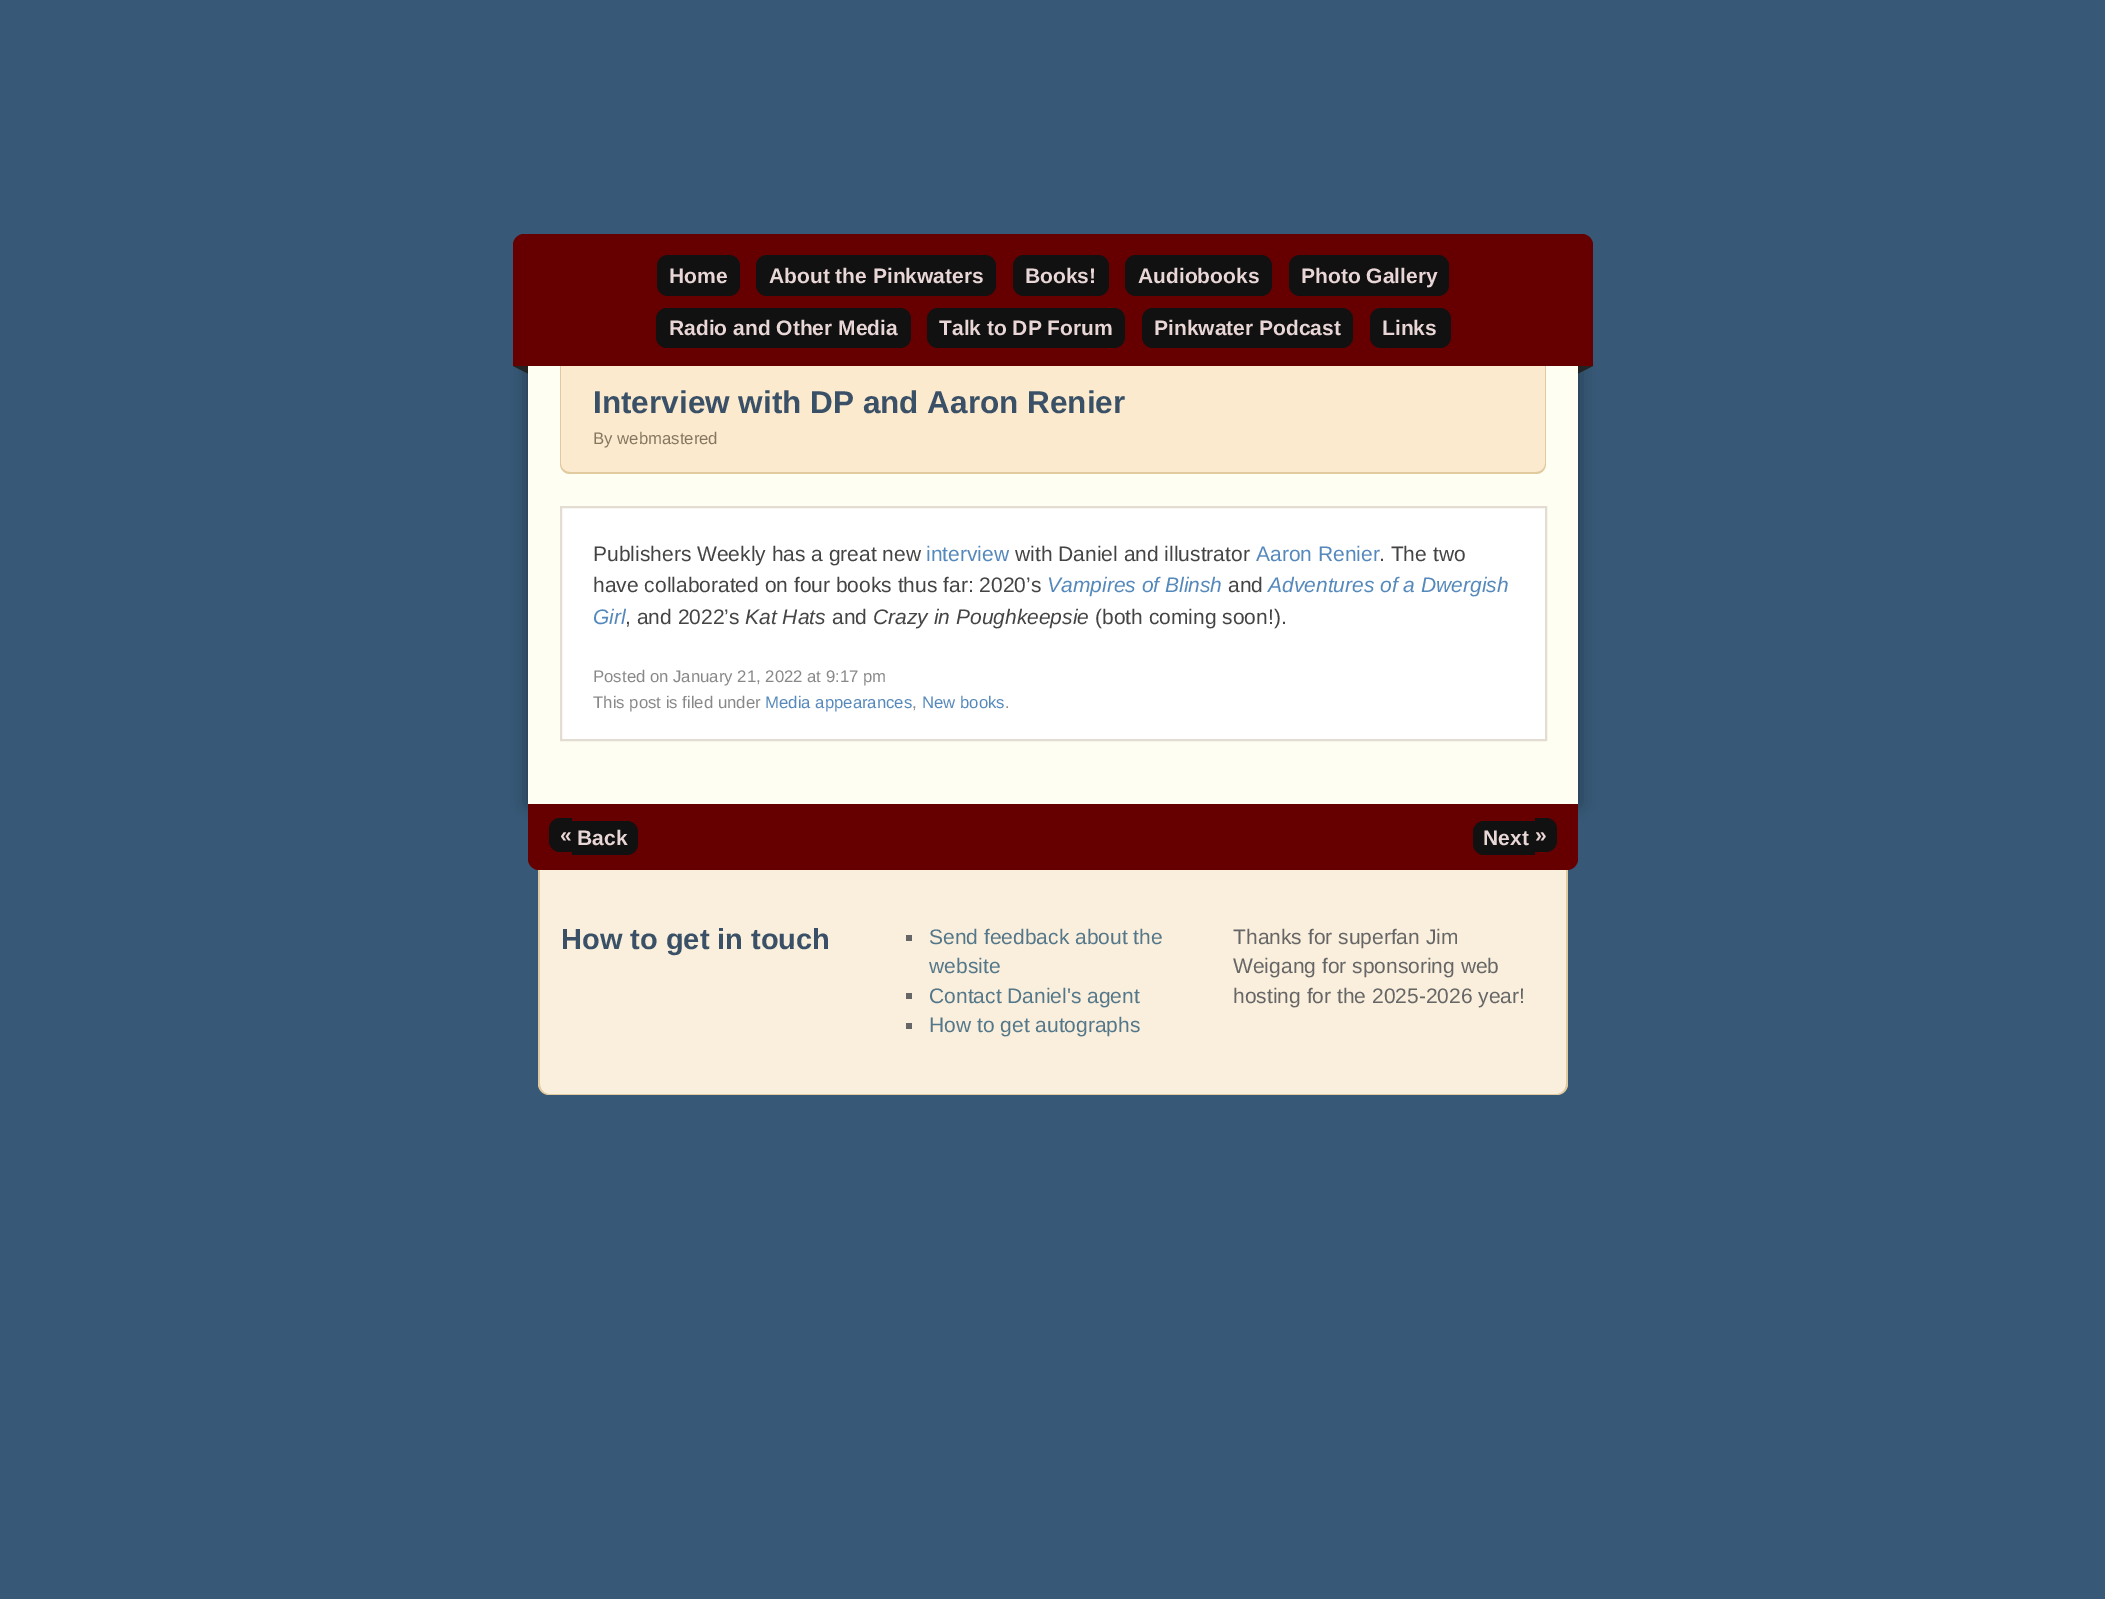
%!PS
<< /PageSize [2105 1599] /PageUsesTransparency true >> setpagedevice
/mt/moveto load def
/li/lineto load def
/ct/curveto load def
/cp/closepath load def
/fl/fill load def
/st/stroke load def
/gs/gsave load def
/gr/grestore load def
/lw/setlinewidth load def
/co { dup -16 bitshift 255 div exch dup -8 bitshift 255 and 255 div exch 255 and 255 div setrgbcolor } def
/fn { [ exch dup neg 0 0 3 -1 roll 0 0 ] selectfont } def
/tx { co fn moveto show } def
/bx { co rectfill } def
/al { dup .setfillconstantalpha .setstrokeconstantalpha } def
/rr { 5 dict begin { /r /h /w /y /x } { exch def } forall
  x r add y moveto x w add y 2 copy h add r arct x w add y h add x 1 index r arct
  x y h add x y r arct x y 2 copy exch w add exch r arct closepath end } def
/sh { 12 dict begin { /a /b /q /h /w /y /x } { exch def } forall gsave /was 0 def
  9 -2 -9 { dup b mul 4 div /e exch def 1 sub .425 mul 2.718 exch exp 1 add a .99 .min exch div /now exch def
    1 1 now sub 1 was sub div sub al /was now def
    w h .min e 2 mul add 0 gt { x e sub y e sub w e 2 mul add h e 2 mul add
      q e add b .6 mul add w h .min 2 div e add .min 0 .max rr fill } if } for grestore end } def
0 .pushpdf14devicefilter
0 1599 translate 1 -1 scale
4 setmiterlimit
0 0 2105 1599 16#375876 bx
16#000000 co
528 366 1050 438 0 8 .4 sh
16#660000 co
524 234 mt 1582 234 li 1588 234 1593 239 1593 245 ct 1593 366 li 513 366 li 513 245 li 513 239 518 234 524 234 ct cp fl
16#111111 co
657 255 83 41 11 rr fl
756 255 240 41 11 rr fl
1013 255 96 41 11 rr fl
1125 255 147 41 11 rr fl
1289 255 160 41 11 rr fl
656 308 255 40 11 rr fl
927 308 198 40 11 rr fl
1142 308 211 40 11 rr fl
1370 308 81 40 11 rr fl
16#222222 co
528 366 mt 528 373.5 li 513 366 li cp fl
1578 373.5 mt 1578 366 li 1593 366 li cp fl
528 366 1050 438 16#FFFEF2 bx
16#FBEACE co
561 366 mt 1545 366 li 1545 464 li 1545 469 1541 473 1536 473 ct 570 473 li 565 473 561 469 561 464 ct cp fl
16#E2CAA0 co
560 366 mt 1546 366 li 1546 464 li 1546 469 1542 474 1536 474 ct 570 474 li 564 474 560 469 560 464 ct cp 561 366 mt 1545 366 li 1545 464 li 1545 468 1541 472 1536 472 ct 570 472 li 565 472 561 468 561 464 ct cp eofill
16#FFFFFF co
561 507 mt 1546 507 li 1546 740 li 561 740 li cp gs fl gr
16#E2DCD2 co
2 lw
st
16#660000 co
528 804 mt 1578 804 li 1578 859 li 1578 865 1573 870 1567 870 ct 539 870 li 533 870 528 865 528 859 ct cp fl
16#111111 co
560 818 mt 572 818 li 572 852 li 560 852 li 554 852 549 847 549 841 ct 549 829 li 549 823 554 818 560 818 ct cp fl
572 821 mt 627 821 li 633 821 638 826 638 832 ct 638 844 li 638 850 633 855 627 855 ct 572 855 li cp fl
1484 821 mt 1535 821 li 1535 855 li 1484 855 li 1478 855 1473 850 1473 844 ct 1473 832 li 1473 826 1478 821 1484 821 ct cp fl
1535 818 mt 1546 818 li 1552 818 1557 823 1557 829 ct 1557 841 li 1557 847 1552 852 1546 852 ct 1535 852 li cp fl
16#FAEFDC co
540 870 mt 1566 870 li 1566 1085 li 1566 1090 1562 1094 1557 1094 ct 549 1094 li 544 1094 540 1090 540 1085 ct cp fl
16#E2CAA0 co
538 870 mt 1568 870 li 1568 1084 li 1568 1090 1563 1095 1557 1095 ct 549 1095 li 543 1095 538 1090 538 1084 ct cp 540 870 mt 1566 870 li 1566 1084 li 1566 1089 1562 1094 1557 1094 ct 549 1094 li 544 1094 540 1089 540 1084 ct cp eofill
906 935 6 6 16#666666 bx
906 993 6 6 16#666666 bx
906 1023 6 6 16#666666 bx
(Home) 669 283 /LiberationSans-Bold 21 16#E9D6D6 tx
(About the Pinkwaters) 769 283 /LiberationSans-Bold 21 16#E9D6D6 tx
(Books!) 1025 283 /LiberationSans-Bold 21 16#E9D6D6 tx
(Audiobooks) 1138 283 /LiberationSans-Bold 21 16#E9D6D6 tx
(Photo Gallery) 1301 283 /LiberationSans-Bold 21 16#E9D6D6 tx
(Radio and Other Media) 669 335 /LiberationSans-Bold 21 16#E9D6D6 tx
(Talk to DP Forum) 939 335 /LiberationSans-Bold 21 16#E9D6D6 tx
(Pinkwater Podcast) 1154 335 /LiberationSans-Bold 21 16#E9D6D6 tx
(Links) 1382 335 /LiberationSans-Bold 21 16#E9D6D6 tx
(Interview with DP and Aaron Renier) 593 413 /LiberationSans-Bold 31.5 16#3A5066 tx
(By webmastered) 593 444 /LiberationSans-Regular 16.75 16#85775F tx
(Publishers Weekly has a great new) 593 561 /LiberationSans-Regular 21 16#444444 tx
(interview) 926 561 /LiberationSans-Regular 21 16#5588BB tx
(with Daniel and illustrator) 1015 561 /LiberationSans-Regular 21 16#444444 tx
(Aaron Renier) 1256 561 /LiberationSans-Regular 21 16#5588BB tx
(. The two) 1379 561 /LiberationSans-Regular 21 16#444444 tx
(have collaborated on four books thus far: 2020’s) 593 592 /LiberationSans-Regular 21 16#444444 tx
(Vampires of Blinsh) 1047 592 /LiberationSans-Italic 21 16#5588BB tx
(and) 1228 592 /LiberationSans-Regular 21 16#444444 tx
(Adventures of a Dwergish) 1268 592 /LiberationSans-Italic 21 16#5588BB tx
(Girl) 593 624 /LiberationSans-Italic 21 16#5588BB tx
(, and 2022’s) 625 624 /LiberationSans-Regular 21 16#444444 tx
(Kat Hats) 745 624 /LiberationSans-Italic 21 16#444444 tx
(and) 832 624 /LiberationSans-Regular 21 16#444444 tx
(Crazy in Poughkeepsie) 873 624 /LiberationSans-Italic 21 16#444444 tx
(\(both coming soon!\).) 1095 624 /LiberationSans-Regular 21 16#444444 tx
(Posted on January 21, 2022 at 9:17 pm) 593 682 /LiberationSans-Regular 16.75 16#888888 tx
(This post is filed under) 593 708 /LiberationSans-Regular 16.75 16#888888 tx
(Media appearances) 765 708 /LiberationSans-Regular 16.75 16#5588BB tx
(,) 912 708 /LiberationSans-Regular 16.75 16#888888 tx
(New books) 922 708 /LiberationSans-Regular 16.75 16#5588BB tx
(.) 1005 708 /LiberationSans-Regular 16.75 16#888888 tx
(«) 560 842 /LiberationSans-Bold 21 16#E9D6D6 tx
(Back) 577 845 /LiberationSans-Bold 21 16#E9D6D6 tx
(Next) 1483 845 /LiberationSans-Bold 21 16#E9D6D6 tx
(») 1535 842 /LiberationSans-Bold 21 16#E9D6D6 tx
(How to get in touch) 561 949 /LiberationSans-Bold 29 16#3A5066 tx
(Send feedback about the) 929 944 /LiberationSans-Regular 21 16#54778A tx
(website) 929 973 /LiberationSans-Regular 21 16#54778A tx
(Contact Daniel's agent) 929 1003 /LiberationSans-Regular 21 16#54778A tx
(How to get autographs) 929 1032 /LiberationSans-Regular 21 16#54778A tx
(Thanks for superfan Jim) 1233 944 /LiberationSans-Regular 21 16#666666 tx
(Weigang for sponsoring web) 1233 973 /LiberationSans-Regular 21 16#666666 tx
(hosting for the 2025-2026 year!) 1233 1003 /LiberationSans-Regular 21 16#666666 tx
.poppdf14devicefilter showpage
